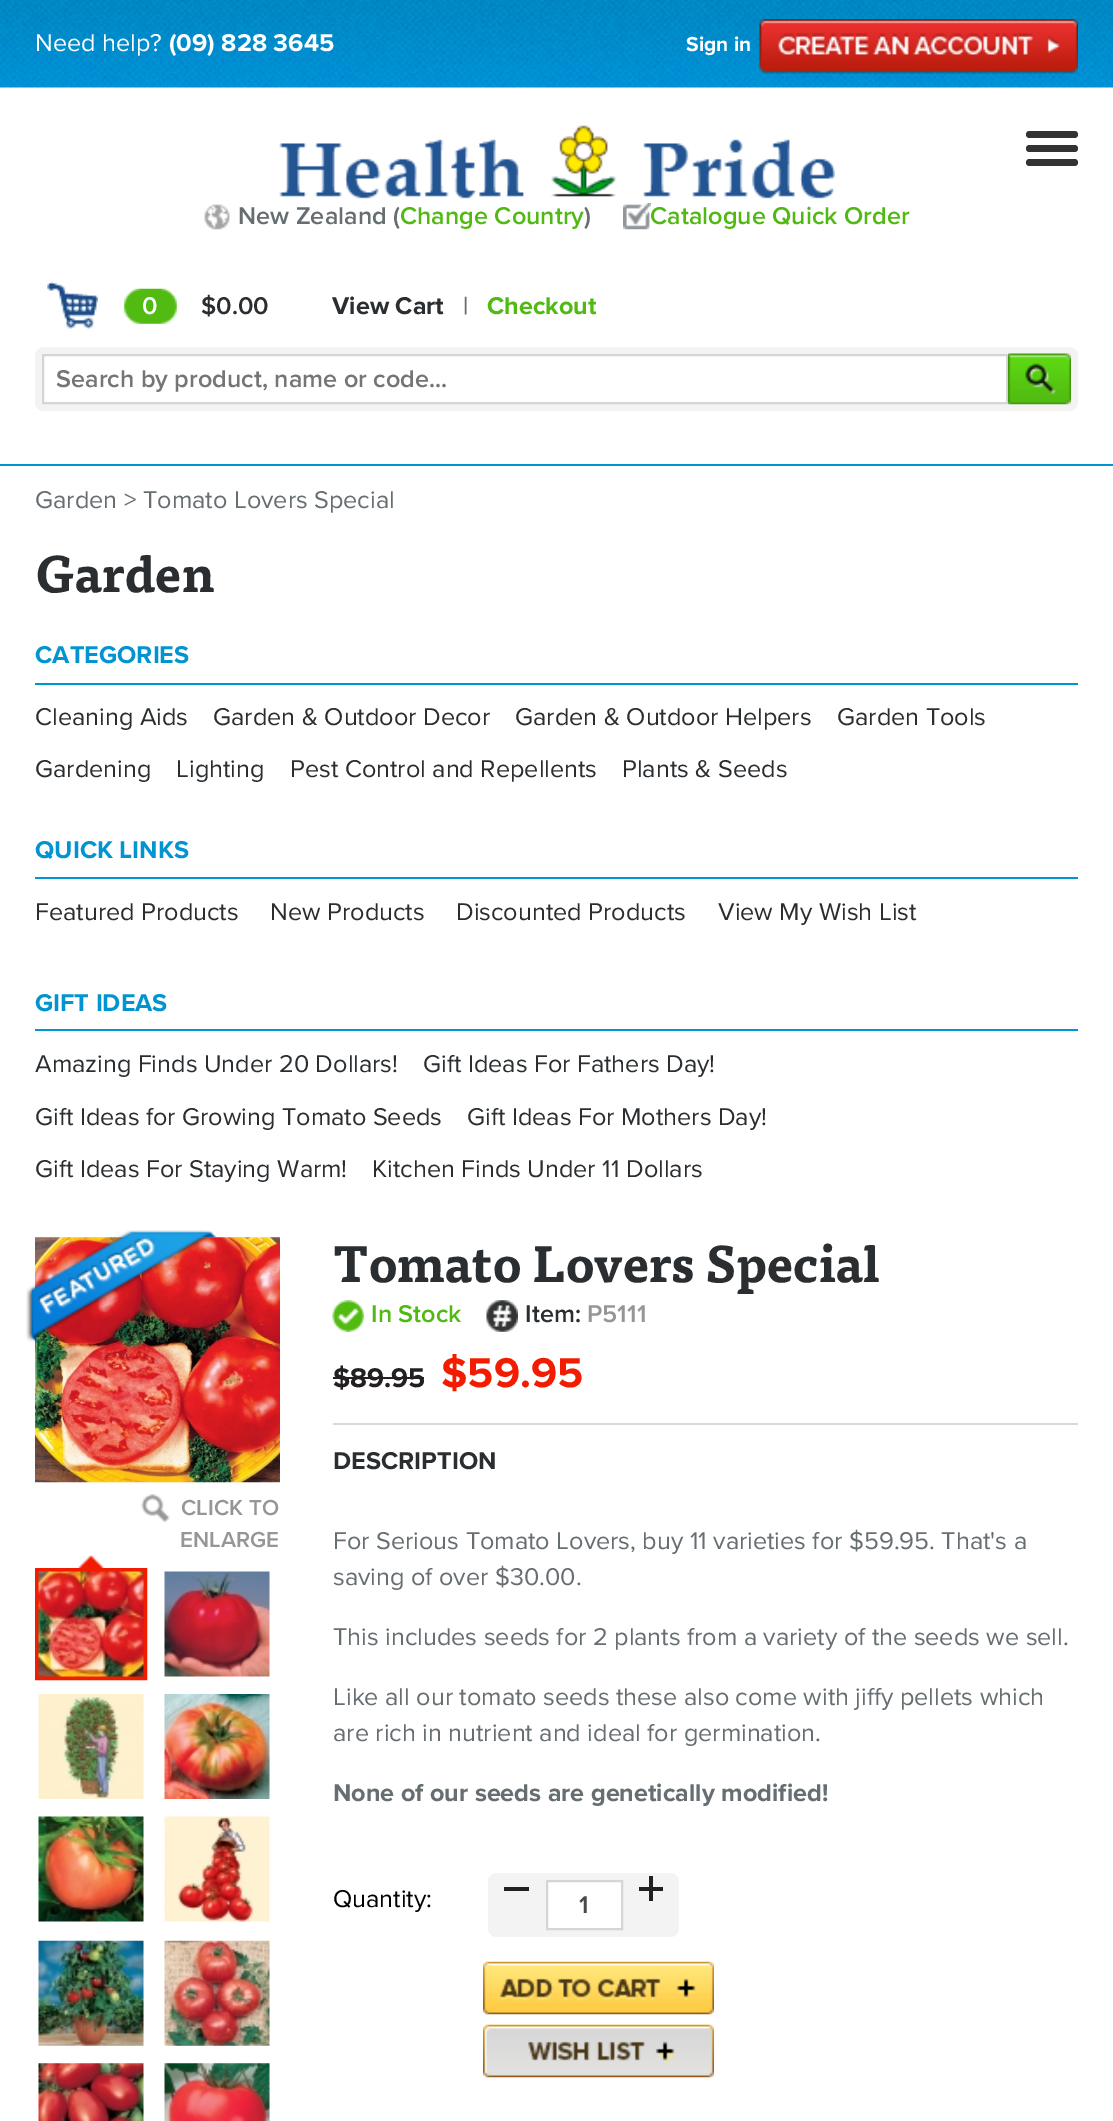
%!PS
<< /PageSize [1113 2121] >> setpagedevice
/mt/moveto load def
/li/lineto load def
/cp/closepath load def
/fl/fill load def
/st/stroke load def
/gs/gsave load def
/gr/grestore load def
/lw/setlinewidth load def
/co { dup -16 bitshift 255 div exch dup -8 bitshift 255 and 255 div exch 255 and 255 div setrgbcolor } def
/fn { [ exch dup neg 0 0 3 -1 roll 0 0 ] selectfont } def
/tx { co fn moveto show } def
/bx { co rectfill } def
/rr { 5 dict begin { /r /h /w /y /x } { exch def } forall
  x r add y moveto x w add y 2 copy h add r arct x w add y h add x 1 index r arct
  x y h add x y r arct x y 2 copy exch w add exch r arct closepath end } def
/im { 5 dict begin { /h /w /y /x /name } { exch def } forall
  gsave x y translate w h scale
  w h 8 [w 0 0 h 0 0] name (r) file false 3 colorimage grestore end } def
0 2121 translate 1 -1 scale
4 setmiterlimit
0 0 1113 2121 16#FFFFFF bx
(media/1.raw) 0 0 1113 88 im
(media/2.raw) 759 19 319 55 im
0 464 1113 2 16#0294D0 bx
(media/3.raw) 279 125 556 74 im
(media/4.raw) 204 204 26 26 im
(media/5.raw) 623 203 28 27 im
(media/6.raw) 47 281 51 48 im
(media/7.raw) 124 288 53 36 im
16#F3F3F3 co
35 347 1043 64 9 rr fl
16#FFFFFF co
43 355 mt 1007 355 li 1007 403 li 43 403 li cp gs fl gr
16#D5D5D5 co
2 lw
st
(media/8.raw) 1008 353 63 52 im
35 683 1043 2 16#0094D2 bx
35 877 1043 2 16#0094D2 bx
35 1029 1043 2 16#0094D2 bx
(media/10.raw) 35 1237 245 246 im
(media/9.raw) 26 1230 190 113 im
(media/11.raw) 141 1494 29 29 im
(media/12.raw) 78 1555 26 13 im
16#F21D00 co
4 lw
37 1570 108 108 rectstroke
(media/13.raw) 38 1571 106 106 im
(media/14.raw) 164 1571 106 106 im
(media/15.raw) 38 1694 106 105 im
(media/16.raw) 164 1694 106 105 im
(media/17.raw) 38 1816 106 106 im
(media/18.raw) 164 1816 106 106 im
(media/19.raw) 38 1940 106 106 im
(media/20.raw) 164 1940 106 106 im
(media/21.raw) 38 2063 106 58 im
(media/22.raw) 164 2063 106 58 im
(media/23.raw) 332 1300 32 32 im
(media/24.raw) 486 1300 32 32 im
333 1377 91 2 16#242021 bx
333 1423 745 2 16#D6D9DE bx
16#F3F3F3 co
488 1873 191 64 9 rr fl
504 1887 25 4 16#212121 bx
639 1887 24 4 16#212121 bx
649 1876 4 25 16#212121 bx
16#FFFFFF co
547 1881 mt 622 1881 li 622 1929 li 547 1929 li cp gs fl gr
16#D5D5D5 co
2 lw
st
(media/25.raw) 483 1961 231 54 im
(media/26.raw) 483 2024 231 54 im
16#333333 co
1026 131 52 7 3.5 rr fl
1026 145 52 7 3.5 rr fl
1026 159 52 7 3.5 rr fl
(Need help?) 35 51 /ProximaNova-Regular 25.2 16#FFFFFF tx
(\(09\) 828 3645) 169 51 /ProximaNova-Bold 25.2 16#FFFFFF tx
(Sign in) 686 51 /ProximaNova-Bold 21 16#FFFFFF tx
(New Zealand \() 238 224 /ProximaNova-SemiBold 25.2 16#666E71 tx
(Change Country) 400 224 /ProximaNova-SemiBold 25.2 16#50BA12 tx
(\)) 584 224 /ProximaNova-SemiBold 25.2 16#666E71 tx
(Catalogue Quick Order) 650 224 /ProximaNova-SemiBold 25.2 16#50BA12 tx
(0) 142 314 /ProximaNova-SemiBold 25.2 16#FFFFFF tx
($0.00) 201 314 /ProximaNova-SemiBold 25.2 16#2A2E31 tx
(View Cart) 332 314 /ProximaNova-Bold 25.2 16#2A2E31 tx
(|) 463 314 /ProximaNova-SemiBold 25.2 16#666E71 tx
(Checkout) 487 314 /ProximaNova-Bold 25.2 16#50BA12 tx
(Search by product, name or code...) 56 387 /ProximaNova-SemiBold 25.2 16#757575 tx
(Garden) 35 508 /ProximaNova-Regular 25.2 16#666E71 tx
(>) 124 508 /ProximaNova-Regular 25.2 16#666E71 tx
(Tomato Lovers Special) 143 508 /ProximaNova-Regular 25.2 16#666E71 tx
(Garden) 35 592 /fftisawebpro-Bold 50.4 16#2A2E31 tx
(CATEGORIES) 35 663 /ProximaNova-Bold 25.2 16#0294D0 tx
(Cleaning Aids) 35 725 /ProximaNova-Regular 25.2 16#2A2E31 tx
(Garden & Outdoor Decor) 213 725 /ProximaNova-Regular 25.2 16#2A2E31 tx
(Garden & Outdoor Helpers) 515 725 /ProximaNova-Regular 25.2 16#2A2E31 tx
(Garden Tools) 837 725 /ProximaNova-Regular 25.2 16#2A2E31 tx
(Gardening) 35 777 /ProximaNova-Regular 25.2 16#2A2E31 tx
(Lighting) 176 777 /ProximaNova-Regular 25.2 16#2A2E31 tx
(Pest Control and Repellents) 290 777 /ProximaNova-Regular 25.2 16#2A2E31 tx
(Plants & Seeds) 622 777 /ProximaNova-Regular 25.2 16#2A2E31 tx
(QUICK LINKS) 35 858 /ProximaNova-Bold 25.2 16#0294D0 tx
(Featured Products) 35 920 /ProximaNova-Regular 25.2 16#2A2E31 tx
(New Products) 270 920 /ProximaNova-Regular 25.2 16#2A2E31 tx
(Discounted Products) 456 920 /ProximaNova-Regular 25.2 16#2A2E31 tx
(View My Wish List) 718 920 /ProximaNova-Regular 25.2 16#2A2E31 tx
(GIFT IDEAS) 35 1011 /ProximaNova-Bold 25.2 16#0294D0 tx
(Amazing Finds Under 20 Dollars!) 35 1072 /ProximaNova-Regular 25.2 16#2A2E31 tx
(Gift Ideas For Fathers Day!) 423 1072 /ProximaNova-Regular 25.2 16#2A2E31 tx
(Gift Ideas for Growing Tomato Seeds) 35 1125 /ProximaNova-Regular 25.2 16#2A2E31 tx
(Gift Ideas For Mothers Day!) 467 1125 /ProximaNova-Regular 25.2 16#2A2E31 tx
(Gift Ideas For Staying Warm!) 35 1177 /ProximaNova-Regular 25.2 16#2A2E31 tx
(Kitchen Finds Under 11 Dollars) 372 1177 /ProximaNova-Regular 25.2 16#2A2E31 tx
(CLICK TO) 181 1515 /ProximaNova-SemiBold 22.5 16#959698 tx
(ENLARGE) 180 1547 /ProximaNova-SemiBold 22.5 16#959698 tx
(Tomato Lovers Special) 333 1282 /fftisawebpro-Bold 50.4 16#2A2E31 tx
(In Stock) 371 1322 /ProximaNova-SemiBold 25.2 16#50BA12 tx
(Item:) 525 1322 /ProximaNova-SemiBold 25.2 16#2A2E31 tx
(P5111) 587 1322 /ProximaNova-SemiBold 25.2 16#959698 tx
($89.95) 333 1387 /ProximaNova-Bold 28 16#242021 tx
($59.95) 441 1387 /ProximaNova-Bold 43 16#F21C00 tx
(DESCRIPTION) 333 1469 /ProximaNova-Bold 25.2 16#2A2E31 tx
(For Serious Tomato Lovers, buy 11 varieties for $59.95. That's a) 333 1549 /ProximaNova-Regular 25.2 16#666E71 tx
(saving of over $30.00.) 333 1585 /ProximaNova-Regular 25.2 16#666E71 tx
(This includes seeds for 2 plants from a variety of the seeds we sell.) 333 1645 /ProximaNova-Regular 25.2 16#666E71 tx
(Like all our tomato seeds these also come with jiffy pellets which) 333 1705 /ProximaNova-Regular 25.2 16#666E71 tx
(are rich in nutrient and ideal for germination.) 333 1741 /ProximaNova-Regular 25.2 16#666E71 tx
(None of our seeds are genetically modified!) 333 1801 /ProximaNova-Bold 25.2 16#666E71 tx
(Quantity:) 333 1907 /ProximaNova-Regular 25.2 16#000000 tx
(1) 579 1913 /ProximaNova-SemiBold 25.2 16#48494B tx
showpage
